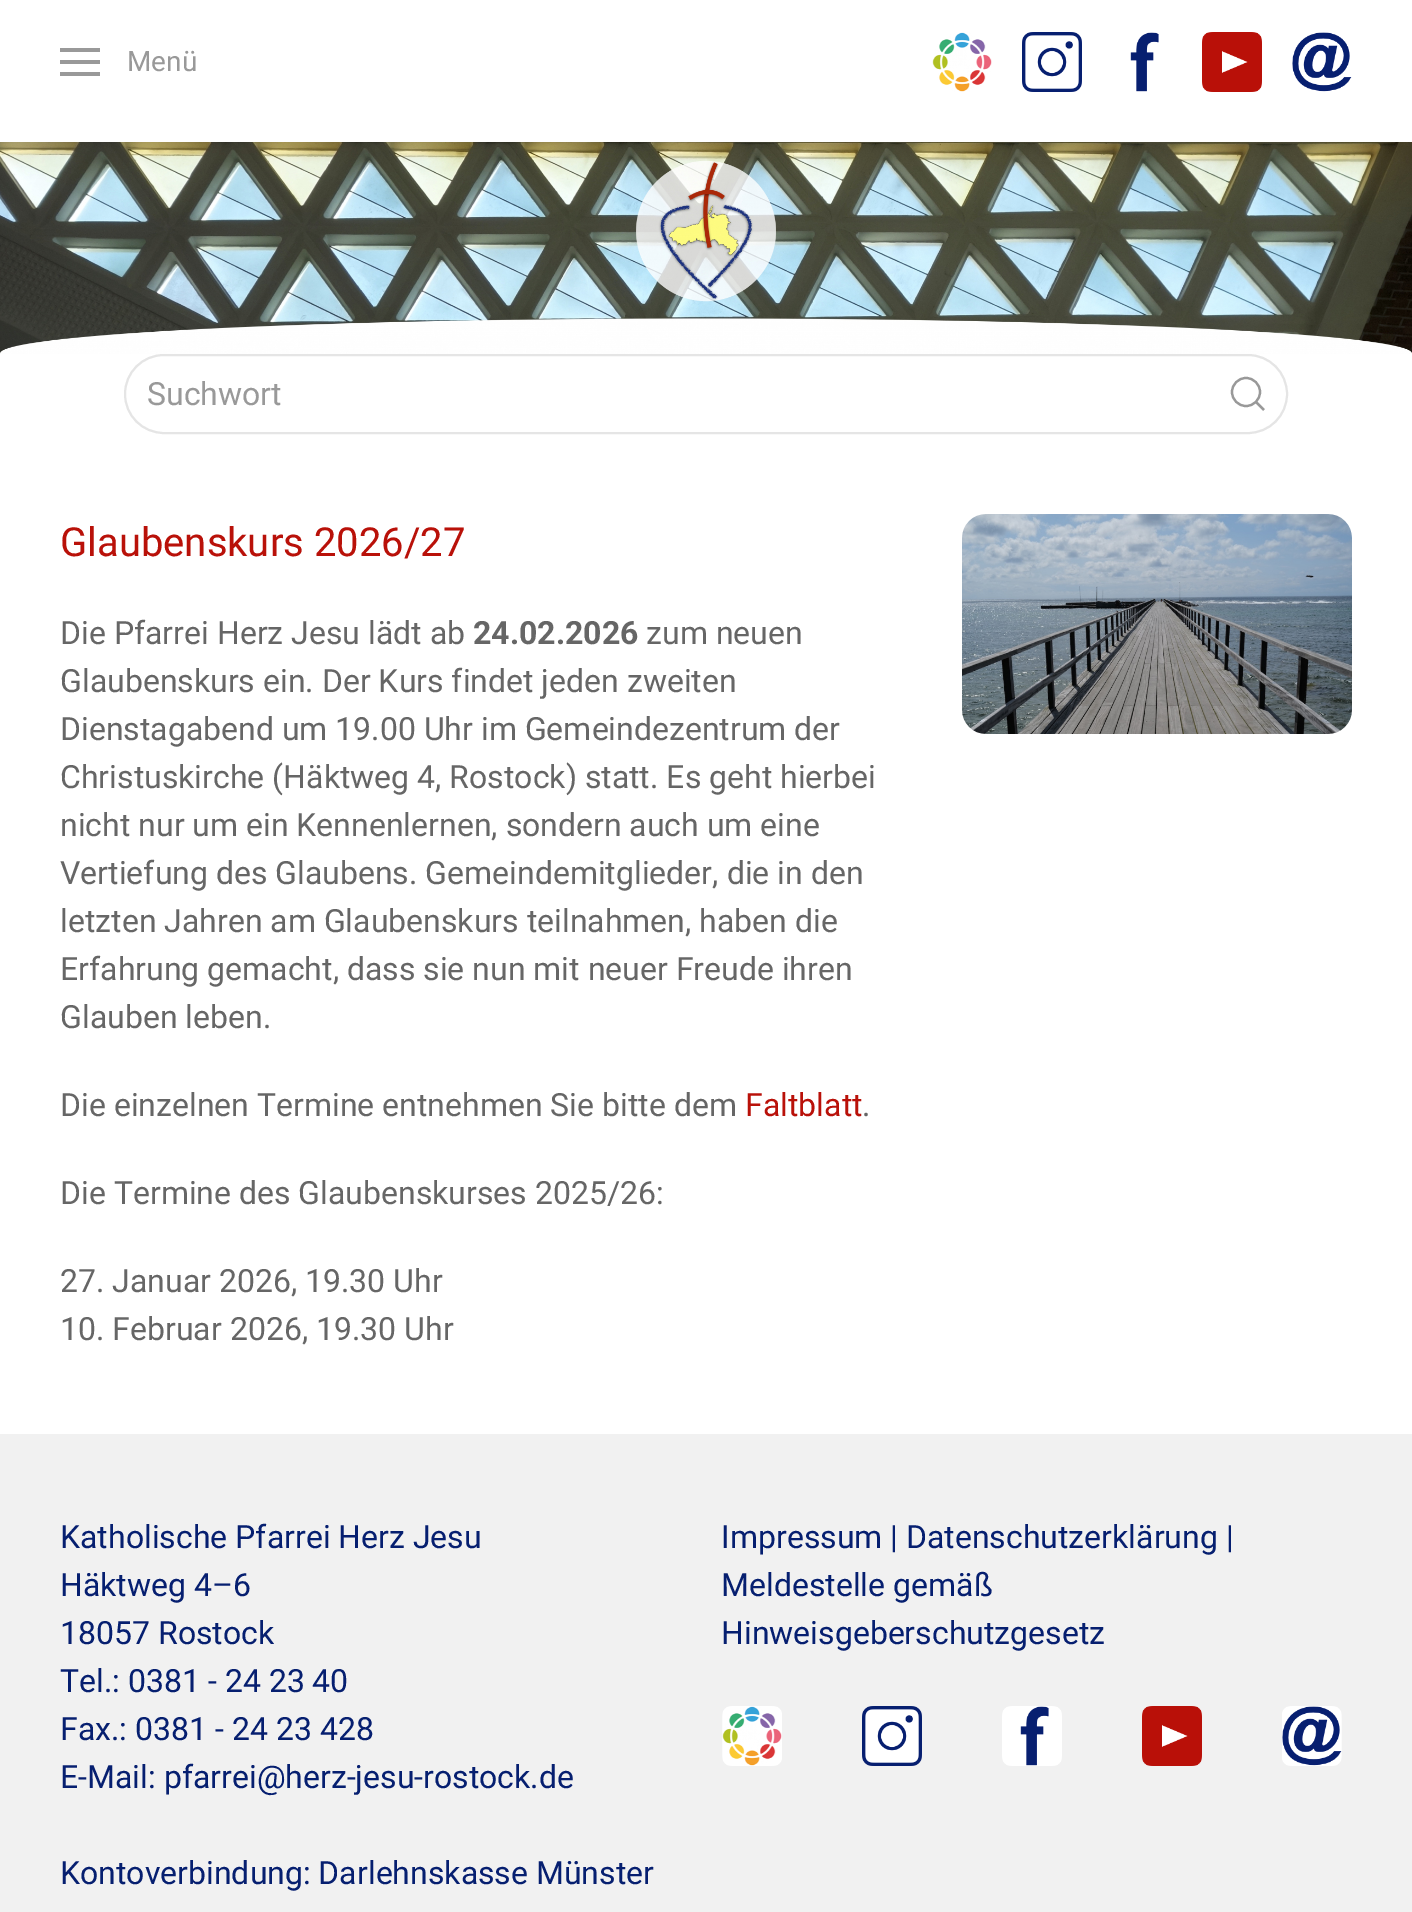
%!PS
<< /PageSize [1412 1912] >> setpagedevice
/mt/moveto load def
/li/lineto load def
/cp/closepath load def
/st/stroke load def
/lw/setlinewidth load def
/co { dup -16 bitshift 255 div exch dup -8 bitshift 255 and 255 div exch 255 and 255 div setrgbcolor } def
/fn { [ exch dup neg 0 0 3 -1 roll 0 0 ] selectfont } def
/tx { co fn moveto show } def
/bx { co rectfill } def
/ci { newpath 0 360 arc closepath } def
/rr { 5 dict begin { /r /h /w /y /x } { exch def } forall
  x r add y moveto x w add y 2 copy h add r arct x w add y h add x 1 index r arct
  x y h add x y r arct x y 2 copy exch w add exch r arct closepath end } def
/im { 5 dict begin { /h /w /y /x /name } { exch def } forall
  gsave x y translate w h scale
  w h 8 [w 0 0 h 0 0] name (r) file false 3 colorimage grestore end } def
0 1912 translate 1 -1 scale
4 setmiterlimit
0 0 1412 1912 16#FFFFFF bx
60 48 40 4 16#999999 bx
60 60 40 4 16#999999 bx
60 72 40 4 16#999999 bx
(media/1.raw) 932 32 60 60 im
(media/2.raw) 1022 32 60 60 im
(media/3.raw) 1130 32 29 60 im
(media/4.raw) 1202 32 60 60 im
(media/5.raw) 1292 32 60 60 im
(media/6.raw) 0 142 1412 212 im
16#E5E5E5 co
2 lw
125 355 1162 78 39 rr st
16#999999 co
2.2 lw
1246 392 14 ci st
1256 402 mt 1264 410 li cp st
(media/7.raw) 962 514 390 220 im
0 1434 1412 478 16#F1F1F1 bx
(media/8.raw) 722 1706 60 60 im
(media/9.raw) 862 1706 60 60 im
(media/10.raw) 1002 1706 60 60 im
(media/11.raw) 1142 1706 60 60 im
(media/12.raw) 1282 1706 60 60 im
(Menü) 127 71 /Roboto-Regular 28 16#999999 tx
(Suchwort) 147 405 /Roboto-Regular 32 16#999999 tx
(Glaubenskurs 2026/27) 60 556 /Roboto-Regular 40 16#B91109 tx
(Die Pfarrei Herz Jesu lädt ab) 60 644 /Roboto-Regular 32 16#666666 tx
(24.02.2026) 473 644 /Roboto-Bold 32 16#666666 tx
(zum neuen) 646 644 /Roboto-Regular 32 16#666666 tx
(Glaubenskurs ein. Der Kurs findet jeden zweiten) 60 692 /Roboto-Regular 32 16#666666 tx
(Dienstagabend um 19.00 Uhr im Gemeindezentrum der) 60 740 /Roboto-Regular 32 16#666666 tx
(Christuskirche \(Häktweg 4, Rostock\) statt. Es geht hierbei) 60 788 /Roboto-Regular 32 16#666666 tx
(nicht nur um ein Kennenlernen, sondern auch um eine) 60 836 /Roboto-Regular 32 16#666666 tx
(Vertiefung des Glaubens. Gemeindemitglieder, die in den) 60 884 /Roboto-Regular 32 16#666666 tx
(letzten Jahren am Glaubenskurs teilnahmen, haben die) 60 932 /Roboto-Regular 32 16#666666 tx
(Erfahrung gemacht, dass sie nun mit neuer Freude ihren) 60 980 /Roboto-Regular 32 16#666666 tx
(Glauben leben.) 60 1028 /Roboto-Regular 32 16#666666 tx
(Die einzelnen Termine entnehmen Sie bitte dem) 60 1116 /Roboto-Regular 32 16#666666 tx
(Faltblatt) 745 1116 /Roboto-Regular 32 16#B91109 tx
(.) 862 1116 /Roboto-Regular 32 16#666666 tx
(Die Termine des Glaubenskurses 2025/26:) 60 1204 /Roboto-Regular 32 16#666666 tx
(27. Januar 2026, 19.30 Uhr) 60 1292 /Roboto-Regular 32 16#666666 tx
(10. Februar 2026, 19.30 Uhr) 60 1340 /Roboto-Regular 32 16#666666 tx
(Katholische Pfarrei Herz Jesu) 60 1548 /Roboto-Regular 32 16#061F70 tx
(Häktweg 4–6) 60 1596 /Roboto-Regular 32 16#061F70 tx
(18057 Rostock) 60 1644 /Roboto-Regular 32 16#061F70 tx
(Tel.: 0381 - 24 23 40) 60 1692 /Roboto-Regular 32 16#061F70 tx
(Fax.: 0381 - 24 23 428) 60 1740 /Roboto-Regular 32 16#061F70 tx
(E-Mail: pfarrei@herz-jesu-rostock.de) 60 1788 /Roboto-Regular 32 16#061F70 tx
(Kontoverbindung: Darlehnskasse Münster) 60 1884 /Roboto-Regular 32 16#061F70 tx
(Impressum | Datenschutzerklärung |) 721 1548 /Roboto-Regular 32 16#061F70 tx
(Meldestelle gemäß) 721 1596 /Roboto-Regular 32 16#061F70 tx
(Hinweisgeberschutzgesetz) 721 1644 /Roboto-Regular 32 16#061F70 tx
showpage
